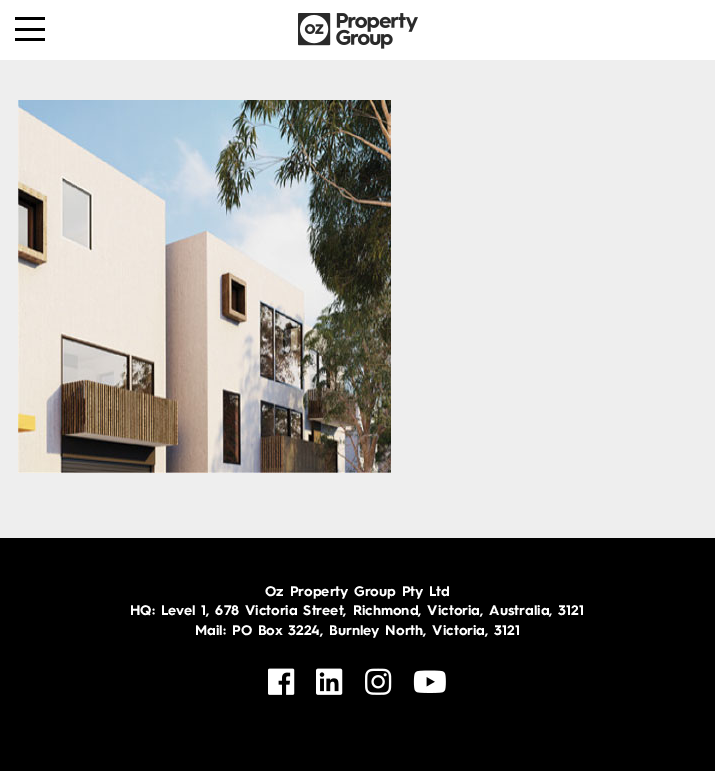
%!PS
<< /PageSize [715 771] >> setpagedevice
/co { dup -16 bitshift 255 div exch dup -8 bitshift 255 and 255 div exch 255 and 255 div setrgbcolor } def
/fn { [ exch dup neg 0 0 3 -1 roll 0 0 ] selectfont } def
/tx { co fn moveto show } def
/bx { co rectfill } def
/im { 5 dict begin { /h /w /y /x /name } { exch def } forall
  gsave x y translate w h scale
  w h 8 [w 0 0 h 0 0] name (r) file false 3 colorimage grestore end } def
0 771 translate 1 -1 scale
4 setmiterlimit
0 0 715 771 16#FFFFFF bx
15 17 30 3 16#000000 bx
15 28 30 3 16#000000 bx
15 38 30 3 16#000000 bx
(media/1.raw) 298 13 120 36 im
0 60 715 478 16#EEEEEE bx
(media/2.raw) 18 100 373 373 im
0 538 715 233 16#000000 bx
(media/3.raw) 268 668 27 27 im
(media/4.raw) 316 668 27 27 im
(media/5.raw) 365 668 27 27 im
(media/6.raw) 413 670 33 23 im
(Oz Property Group Pty Ltd) 265 596 /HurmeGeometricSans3-Bold 14 16#FFFFFF tx
(HQ: Level 1, 678 Victoria Street, Richmond, Victoria, Australia, 3121) 130 615 /HurmeGeometricSans3-Bold 14 16#FFFFFF tx
(Mail: PO Box 3224, Burnley North, Victoria, 3121) 195 635 /HurmeGeometricSans3-Bold 14 16#FFFFFF tx
showpage
